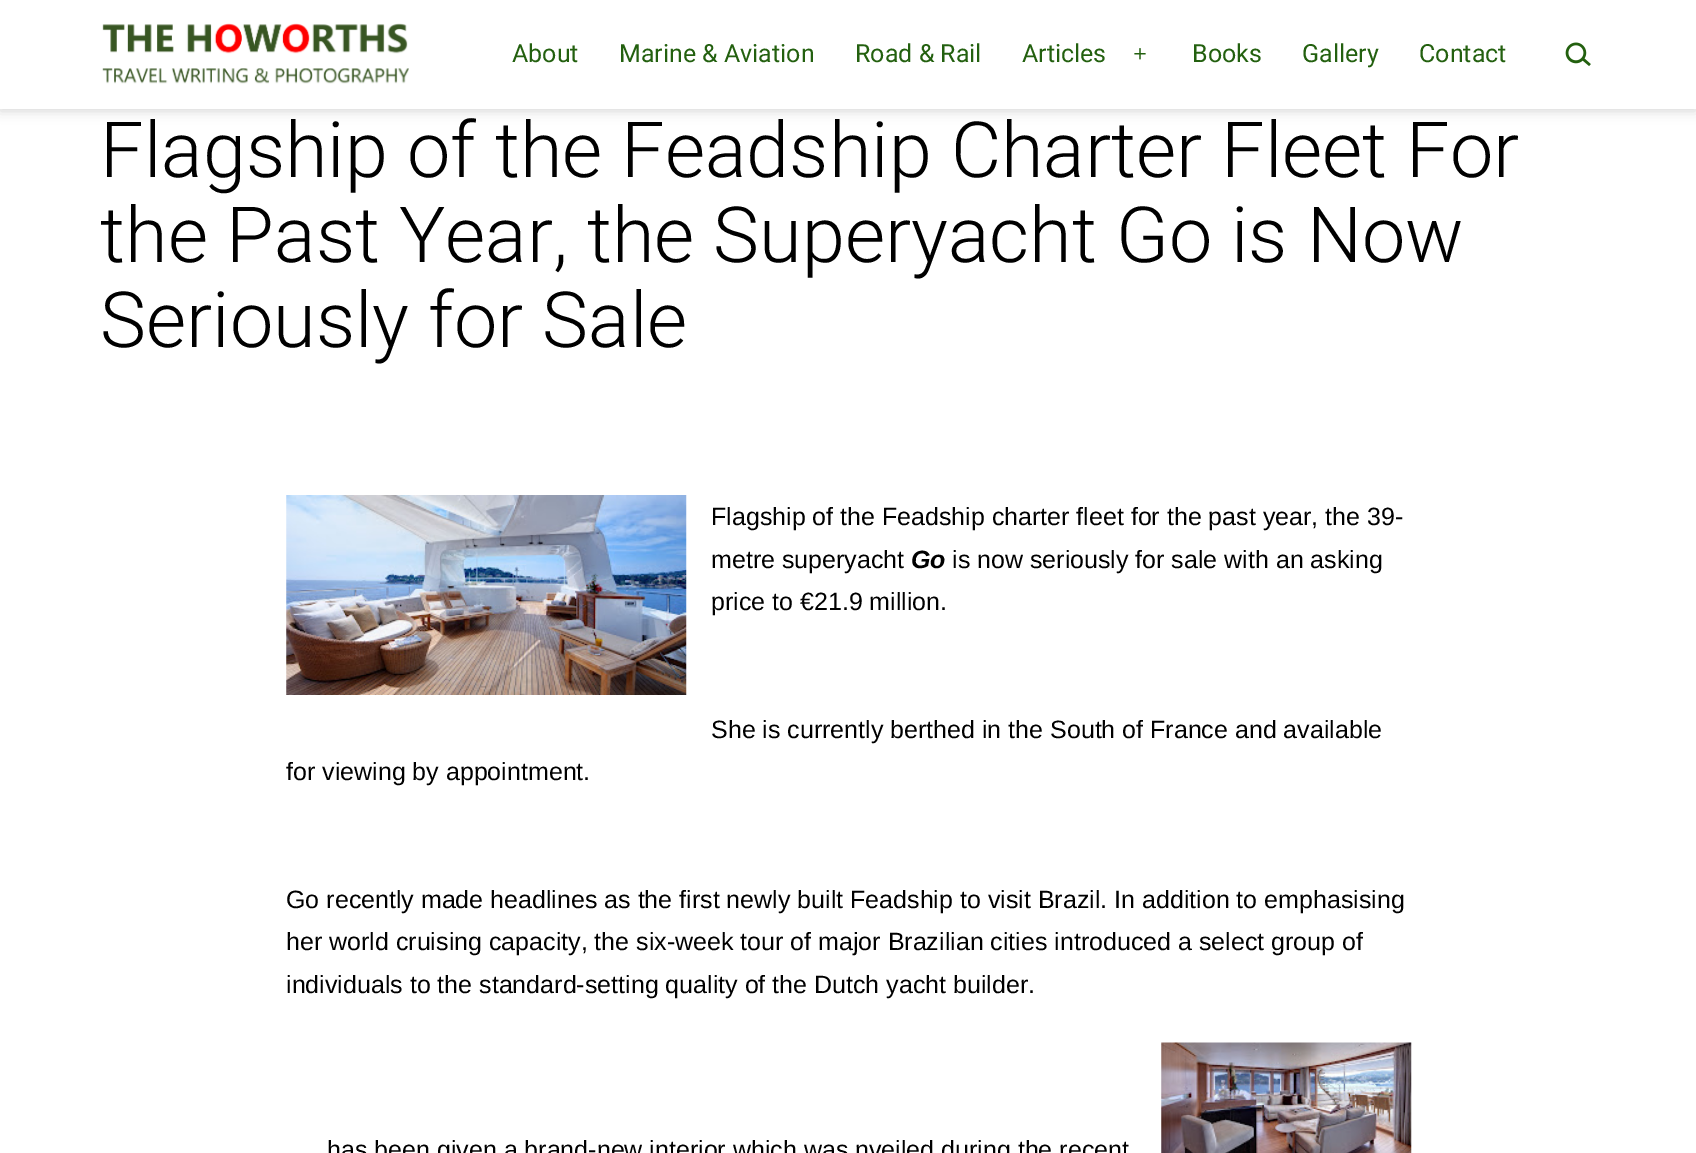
%!PS
<< /PageSize [1696 1153] /PageUsesTransparency true >> setpagedevice
/co { dup -16 bitshift 255 div exch dup -8 bitshift 255 and 255 div exch 255 and 255 div setrgbcolor } def
/fn { [ exch dup neg 0 0 3 -1 roll 0 0 ] selectfont } def
/tx { co fn moveto show } def
/bx { co rectfill } def
/al { dup .setfillconstantalpha .setstrokeconstantalpha } def
/rr { 5 dict begin { /r /h /w /y /x } { exch def } forall
  x r add y moveto x w add y 2 copy h add r arct x w add y h add x 1 index r arct
  x y h add x y r arct x y 2 copy exch w add exch r arct closepath end } def
/sh { 12 dict begin { /a /b /q /h /w /y /x } { exch def } forall gsave /was 0 def
  9 -2 -9 { dup b mul 4 div /e exch def 1 sub .425 mul 2.718 exch exp 1 add a .99 .min exch div /now exch def
    1 1 now sub 1 was sub div sub al /was now def
    w h .min e 2 mul add 0 gt { x e sub y e sub w e 2 mul add h e 2 mul add
      q e add b .6 mul add w h .min 2 div e add .min 0 .max rr fill } if } for grestore end } def
/im { 5 dict begin { /h /w /y /x /name } { exch def } forall
  gsave x y translate w h scale
  w h 8 [w 0 0 h 0 0] name (r) file false 3 colorimage grestore end } def
0 .pushpdf14devicefilter
0 1153 translate 1 -1 scale
4 setmiterlimit
0 0 1696 1153 16#FFFFFF bx
16#000000 co
0 3 1696 108 0 6 .16 sh
0 0 1696 109 16#FFFFFF bx
(media/1.raw) 102 23 307 61 im
(media/2.raw) 1134 48 12 12 im
(media/3.raw) 1565 42 26 24 im
(media/4.raw) 286 495 401 200 im
(media/5.raw) 1161 1042 251 111 im
(About) 512 62 /Roboto-Regular 25 16#23600F tx
(Marine & Aviation) 619 62 /Roboto-Regular 25 16#23600F tx
(Road & Rail) 855 62 /Roboto-Regular 25 16#23600F tx
(Articles) 1022 62 /Roboto-Regular 25 16#23600F tx
(Books) 1192 62 /Roboto-Regular 25 16#23600F tx
(Gallery) 1302 62 /Roboto-Regular 25 16#23600F tx
(Contact) 1419 62 /Roboto-Regular 25 16#23600F tx
(Flagship of the Feadship Charter Fleet For) 100 177 /Roboto-Light 77.5 16#000000 tx
(the Past Year, the Superyacht Go is Now) 100 262 /Roboto-Light 77.5 16#000000 tx
(Seriously for Sale) 100 347 /Roboto-Light 77.5 16#000000 tx
(Flagship of the Feadship charter fleet for the past year, the 39-) 711 525 /LiberationSans-Regular 25 16#000000 tx
(metre superyacht) 711 568 /LiberationSans-Regular 25 16#000000 tx
(Go) 911 568 /LiberationSans-BoldItalic 25 16#000000 tx
(is now seriously for sale with an asking) 952 568 /LiberationSans-Regular 25 16#000000 tx
(price to €21.9 million.) 711 610 /LiberationSans-Regular 25 16#000000 tx
(She is currently berthed in the South of France and available) 711 738 /LiberationSans-Regular 25 16#000000 tx
(for viewing by appointment.) 286 780 /LiberationSans-Regular 25 16#000000 tx
(Go recently made headlines as the first newly built Feadship to visit Brazil. In addition to emphasising) 286 908 /LiberationSans-Regular 25 16#000000 tx
(her world cruising capacity, the six-week tour of major Brazilian cities introduced a select group of) 286 950 /LiberationSans-Regular 25 16#000000 tx
(individuals to the standard-setting quality of the Dutch yacht builder.) 286 993 /LiberationSans-Regular 25 16#000000 tx
(has been given a brand-new interior which was nveiled during the recent) 327 1158 /LiberationSans-Regular 25 16#000000 tx
.poppdf14devicefilter showpage
